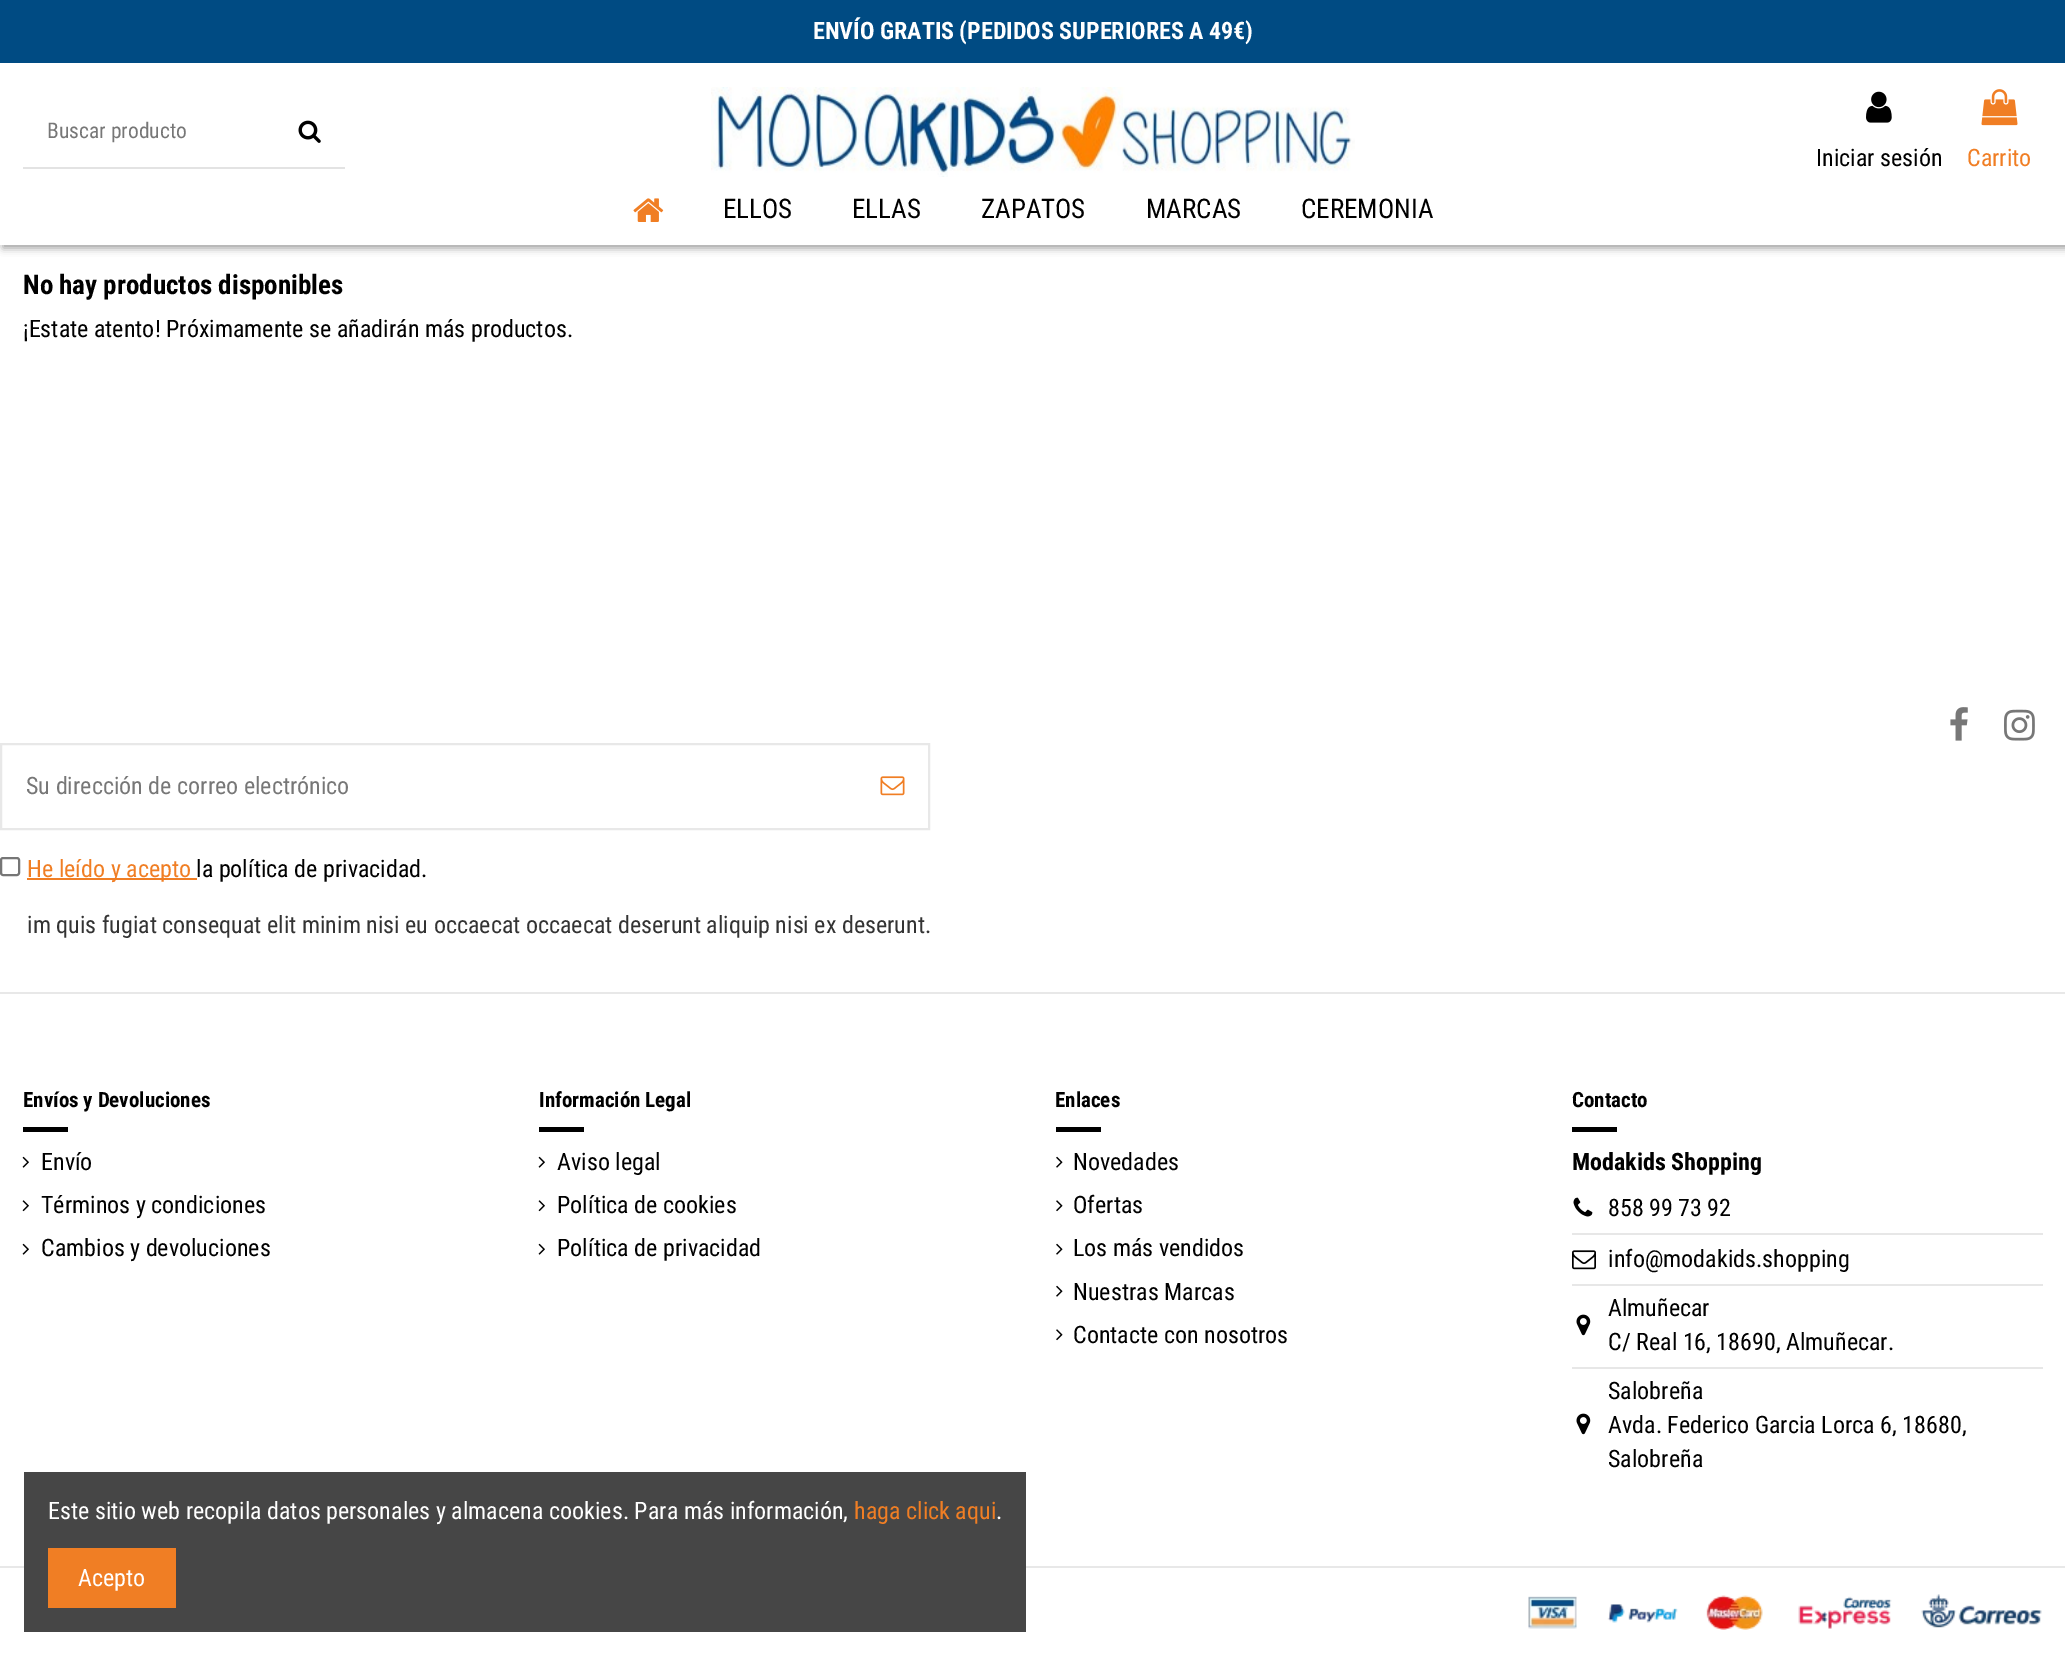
%!PS
<< /PageSize [2065 1656] /PageUsesTransparency true >> setpagedevice
/st/stroke load def
/lw/setlinewidth load def
/co { dup -16 bitshift 255 div exch dup -8 bitshift 255 and 255 div exch 255 and 255 div setrgbcolor } def
/fn { [ exch dup neg 0 0 3 -1 roll 0 0 ] selectfont } def
/tx { co fn moveto show } def
/bx { co rectfill } def
/al { dup .setfillconstantalpha .setstrokeconstantalpha } def
/rr { 5 dict begin { /r /h /w /y /x } { exch def } forall
  x r add y moveto x w add y 2 copy h add r arct x w add y h add x 1 index r arct
  x y h add x y r arct x y 2 copy exch w add exch r arct closepath end } def
/sh { 12 dict begin { /a /b /q /h /w /y /x } { exch def } forall gsave /was 0 def
  9 -2 -9 { dup b mul 4 div /e exch def 1 sub .425 mul 2.718 exch exp 1 add a .99 .min exch div /now exch def
    1 1 now sub 1 was sub div sub al /was now def
    w h .min e 2 mul add 0 gt { x e sub y e sub w e 2 mul add h e 2 mul add
      q e add b .6 mul add w h .min 2 div e add .min 0 .max rr fill } if } for grestore end } def
/im { 5 dict begin { /h /w /y /x /name } { exch def } forall
  gsave x y translate w h scale
  w h 8 [w 0 0 h 0 0] name (r) file false 3 colorimage grestore end } def
0 .pushpdf14devicefilter
0 1656 translate 1 -1 scale
4 setmiterlimit
0 0 2065 1656 16#FFFFFF bx
16#999999 co
3 3 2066 245 0 4 1 sh
0 63 2065 182 16#FFFFFF bx
0 0 2065 63 16#004B83 bx
23 167 322 2 16#E3E3E3 bx
(media/1.raw) 298 120 23 23 im
(media/2.raw) 711 87 644 90 im
(media/3.raw) 1866 91 26 32 im
(media/4.raw) 1981 89 37 37 im
(media/5.raw) 633 198 31 24 im
(media/6.raw) 1950 707 18 34 im
(media/7.raw) 2004 709 31 32 im
16#E8E8E8 co
2 lw
1 744 928 85 rectstroke
(media/8.raw) 880 776 25 20 im
16#767676 co
1 858 18 17 2 rr st
27 878 170 2 16#F07E24 bx
0 992 2065 2 16#E8E8E8 bx
23 1127 45 5 16#000000 bx
(media/9.raw) 22 1156 7 12 im
(media/10.raw) 22 1200 7 12 im
(media/9.raw) 22 1243 7 12 im
539 1127 45 5 16#000000 bx
(media/9.raw) 538 1156 7 12 im
(media/10.raw) 538 1200 7 12 im
(media/9.raw) 538 1243 7 12 im
1056 1127 45 5 16#000000 bx
(media/11.raw) 1056 1156 7 12 im
(media/12.raw) 1056 1200 7 12 im
(media/11.raw) 1056 1243 7 12 im
(media/11.raw) 1056 1285 7 12 im
(media/12.raw) 1056 1329 7 12 im
1572 1127 45 5 16#000000 bx
(media/13.raw) 1573 1197 20 20 im
1572 1233 471 2 16#E7E7E7 bx
(media/14.raw) 1572 1250 24 20 im
1572 1284 471 2 16#E7E7E7 bx
(media/15.raw) 1576 1314 15 22 im
1572 1367 471 2 16#E7E7E7 bx
(media/15.raw) 1576 1413 15 22 im
0 1566 2065 2 16#E8E8E8 bx
(media/16.raw) 1528 1594 514 36 im
24 1472 1002 160 16#464646 bx
48 1548 128 60 16#F07E24 bx
(ENVÍO GRATIS \(PEDIDOS SUPERIORES A 49€\)) 813 39 /RobotoCondensed-Bold 24 16#FFFFFF tx
(Buscar producto) 47 138 /RobotoCondensed-Regular 21.5 16#777777 tx
(Iniciar sesión) 1816 166 /RobotoCondensed-Regular 24 16#000000 tx
(Carrito) 1967 166 /RobotoCondensed-Regular 24 16#F07E24 tx
(ELLOS) 723 218 /RobotoCondensed-Regular 27 16#000000 tx
(ELLAS) 852 218 /RobotoCondensed-Regular 27 16#000000 tx
(ZAPATOS) 981 218 /RobotoCondensed-Regular 27 16#000000 tx
(MARCAS) 1146 218 /RobotoCondensed-Regular 27 16#000000 tx
(CEREMONIA) 1301 218 /RobotoCondensed-Regular 27 16#000000 tx
(No hay productos disponibles) 23 294 /RobotoCondensed-Bold 27 16#000000 tx
(¡Estate atento! Próximamente se añadirán más productos.) 23 337 /RobotoCondensed-Regular 24 16#000000 tx
(Su dirección de correo electrónico) 26 794 /RobotoCondensed-Regular 24 16#777777 tx
(He leído y acepto) 27 877 /RobotoCondensed-Regular 24 16#F07E24 tx
(la política de privacidad.) 196 877 /RobotoCondensed-Regular 24 16#000000 tx
(im quis fugiat consequat elit minim nisi eu occaecat occaecat deserunt aliquip nisi ex deserunt.) 27 933 /RobotoCondensed-Regular 24 16#333333 tx
(Envíos y Devoluciones) 23 1107 /RobotoCondensed-Bold 21 16#000000 tx
(Envío) 41 1170 /RobotoCondensed-Regular 24 16#000000 tx
(Términos y condiciones) 41 1213 /RobotoCondensed-Regular 24 16#000000 tx
(Cambios y devoluciones) 41 1256 /RobotoCondensed-Regular 24 16#000000 tx
(Información Legal) 539 1107 /RobotoCondensed-Bold 21 16#000000 tx
(Aviso legal) 557 1170 /RobotoCondensed-Regular 24 16#000000 tx
(Política de cookies) 557 1213 /RobotoCondensed-Regular 24 16#000000 tx
(Política de privacidad) 557 1256 /RobotoCondensed-Regular 24 16#000000 tx
(Enlaces) 1055 1107 /RobotoCondensed-Bold 21 16#000000 tx
(Novedades) 1073 1170 /RobotoCondensed-Regular 24 16#000000 tx
(Ofertas) 1073 1213 /RobotoCondensed-Regular 24 16#000000 tx
(Los más vendidos) 1073 1256 /RobotoCondensed-Regular 24 16#000000 tx
(Nuestras Marcas) 1073 1300 /RobotoCondensed-Regular 24 16#000000 tx
(Contacte con nosotros) 1073 1343 /RobotoCondensed-Regular 24 16#000000 tx
(Contacto) 1572 1107 /RobotoCondensed-Bold 21 16#000000 tx
(Modakids Shopping) 1572 1170 /RobotoCondensed-Bold 24 16#000000 tx
(858 99 73 92) 1608 1216 /RobotoCondensed-Regular 24 16#000000 tx
(info@modakids.shopping) 1608 1267 /RobotoCondensed-Regular 24 16#000000 tx
(Almuñecar) 1608 1316 /RobotoCondensed-Regular 24 16#000000 tx
(C/ Real 16, 18690, Almuñecar.) 1608 1350 /RobotoCondensed-Regular 24 16#000000 tx
(Salobreña) 1608 1399 /RobotoCondensed-Regular 24 16#000000 tx
(Avda. Federico Garcia Lorca 6, 18680,) 1608 1433 /RobotoCondensed-Regular 24 16#000000 tx
(Salobreña) 1608 1467 /RobotoCondensed-Regular 24 16#000000 tx
(Este sitio web recopila datos personales y almacena cookies. Para más información,) 48 1519 /RobotoCondensed-Regular 24 16#FFFFFF tx
(haga click aqui) 854 1519 /RobotoCondensed-Regular 24 16#F07E24 tx
(.) 996 1519 /RobotoCondensed-Regular 24 16#FFFFFF tx
(Acepto) 78 1586 /RobotoCondensed-Regular 24 16#FFFFFF tx
.poppdf14devicefilter showpage
